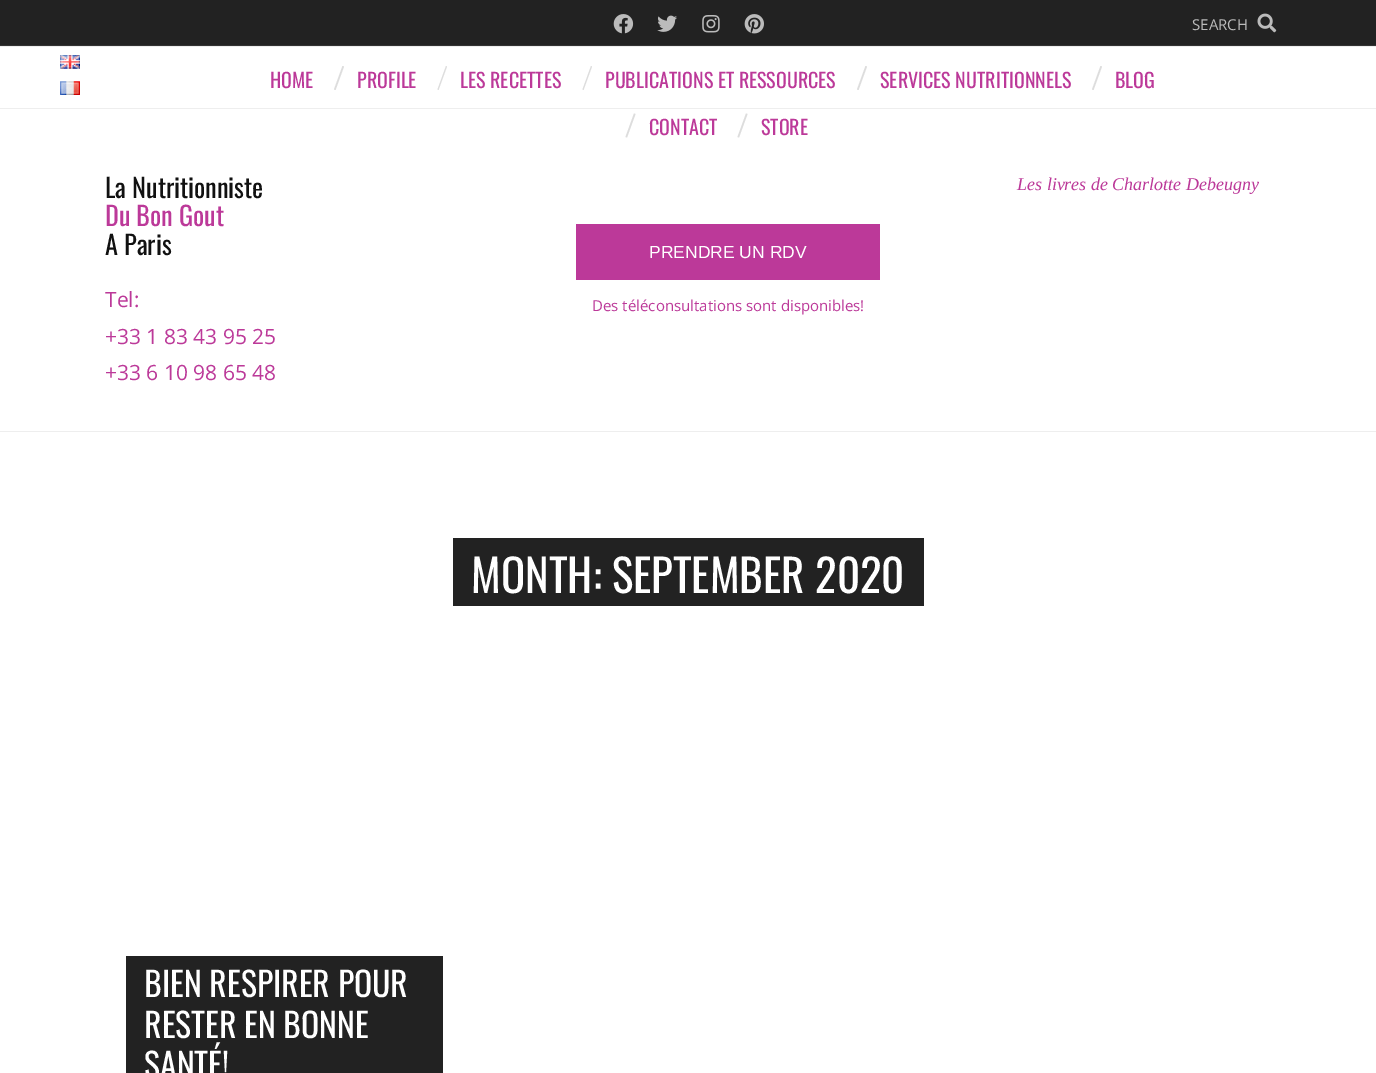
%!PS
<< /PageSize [1376 1073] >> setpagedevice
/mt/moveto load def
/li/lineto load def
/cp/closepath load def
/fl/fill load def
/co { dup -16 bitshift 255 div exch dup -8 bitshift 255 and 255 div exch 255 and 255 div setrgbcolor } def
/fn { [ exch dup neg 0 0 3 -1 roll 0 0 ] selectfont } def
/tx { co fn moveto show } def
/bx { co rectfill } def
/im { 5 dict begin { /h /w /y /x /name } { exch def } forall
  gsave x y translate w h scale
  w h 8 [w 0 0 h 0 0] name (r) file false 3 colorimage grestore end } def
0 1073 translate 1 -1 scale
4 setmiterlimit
0 0 1376 1073 16#FFFFFF bx
0 431 1376 1 16#EEEEEE bx
0 0 1376 45 16#222222 bx
0 45 1376 1 16#333333 bx
(media/1.raw) 613 14 21 20 im
(media/2.raw) 657 15 20 17 im
(media/3.raw) 702 15 18 18 im
(media/4.raw) 744 14 20 20 im
(media/5.raw) 1257 13 20 20 im
0 46 1376 1 16#EEEEEE bx
0 108 1376 1 16#EEEEEE bx
(media/6.raw) 60 55 20 14 im
(media/7.raw) 60 81 20 14 im
16#DDDDDD co
342.5 66 mt 344 66.5 li 335.5 90 li 334 89.5 li cp fl
446 66 mt 447 66.5 li 438.5 90 li 437.5 89.5 li cp fl
591 66 mt 592 66.5 li 583.5 90 li 582.5 89.5 li cp fl
865.5 66 mt 867 66.5 li 858.5 90 li 857 89.5 li cp fl
1100.5 66 mt 1102 66.5 li 1093.5 90 li 1092 89.5 li cp fl
634 113.5 mt 635.5 114 li 627 137.5 li 625.5 137 li cp fl
746 113.5 mt 747.5 114 li 739 137.5 li 737.5 137 li cp fl
576 224 304 56 16#BC3999 bx
453 538 471 68 16#222222 bx
126 956 317 117 16#222222 bx
(SEARCH) 1192 30 /OpenSans-Regular 15 16#BBBBBB tx
(HOME) 270 88 /Oswald-Regular 20 16#BC3999 tx
(PROFILE) 357 88 /Oswald-Regular 20 16#BC3999 tx
(LES RECETTES) 460 88 /Oswald-Regular 20 16#BC3999 tx
(PUBLICATIONS ET RESSOURCES) 605 88 /Oswald-Regular 20 16#BC3999 tx
(SERVICES NUTRITIONNELS) 880 88 /Oswald-Regular 20 16#BC3999 tx
(BLOG) 1115 88 /Oswald-Regular 20 16#BC3999 tx
(CONTACT) 649 135 /Oswald-Regular 20 16#BC3999 tx
(STORE) 761 135 /Oswald-Regular 20 16#BC3999 tx
(La Nutritionniste) 105 198 /Oswald-Regular 26.25 16#111111 tx
(Du Bon Gout) 105 226 /Oswald-Regular 26.25 16#BC3999 tx
(A Paris) 105 255 /Oswald-Regular 26.25 16#111111 tx
(Tel:) 105 307 /OpenSans-Regular 21 16#BC3999 tx
(+33 1 83 43 95 25) 105 344 /OpenSans-Regular 21 16#BC3999 tx
(+33 6 10 98 65 48) 105 380 /OpenSans-Regular 21 16#BC3999 tx
(Les livres de Charlotte Debeugny) 1017 190 /LiberationSerif-Italic 18 16#BC3999 tx
(PRENDRE UN RDV) 649 258 /LiberationSans-Regular 17.5 16#FFFFFF tx
(Des téléconsultations sont disponibles!) 592 311 /OpenSans-Regular 15 16#BC3999 tx
(MONTH: SEPTEMBER 2020) 471 593 /Oswald-Regular 45 16#FFFFFF tx
(BIEN RESPIRER POUR) 144 997 /Oswald-Regular 33.75 16#FFFFFF tx
(RESTER EN BONNE) 144 1038 /Oswald-Regular 33.75 16#FFFFFF tx
(SANTÉ!) 144 1078 /Oswald-Regular 33.75 16#FFFFFF tx
showpage
